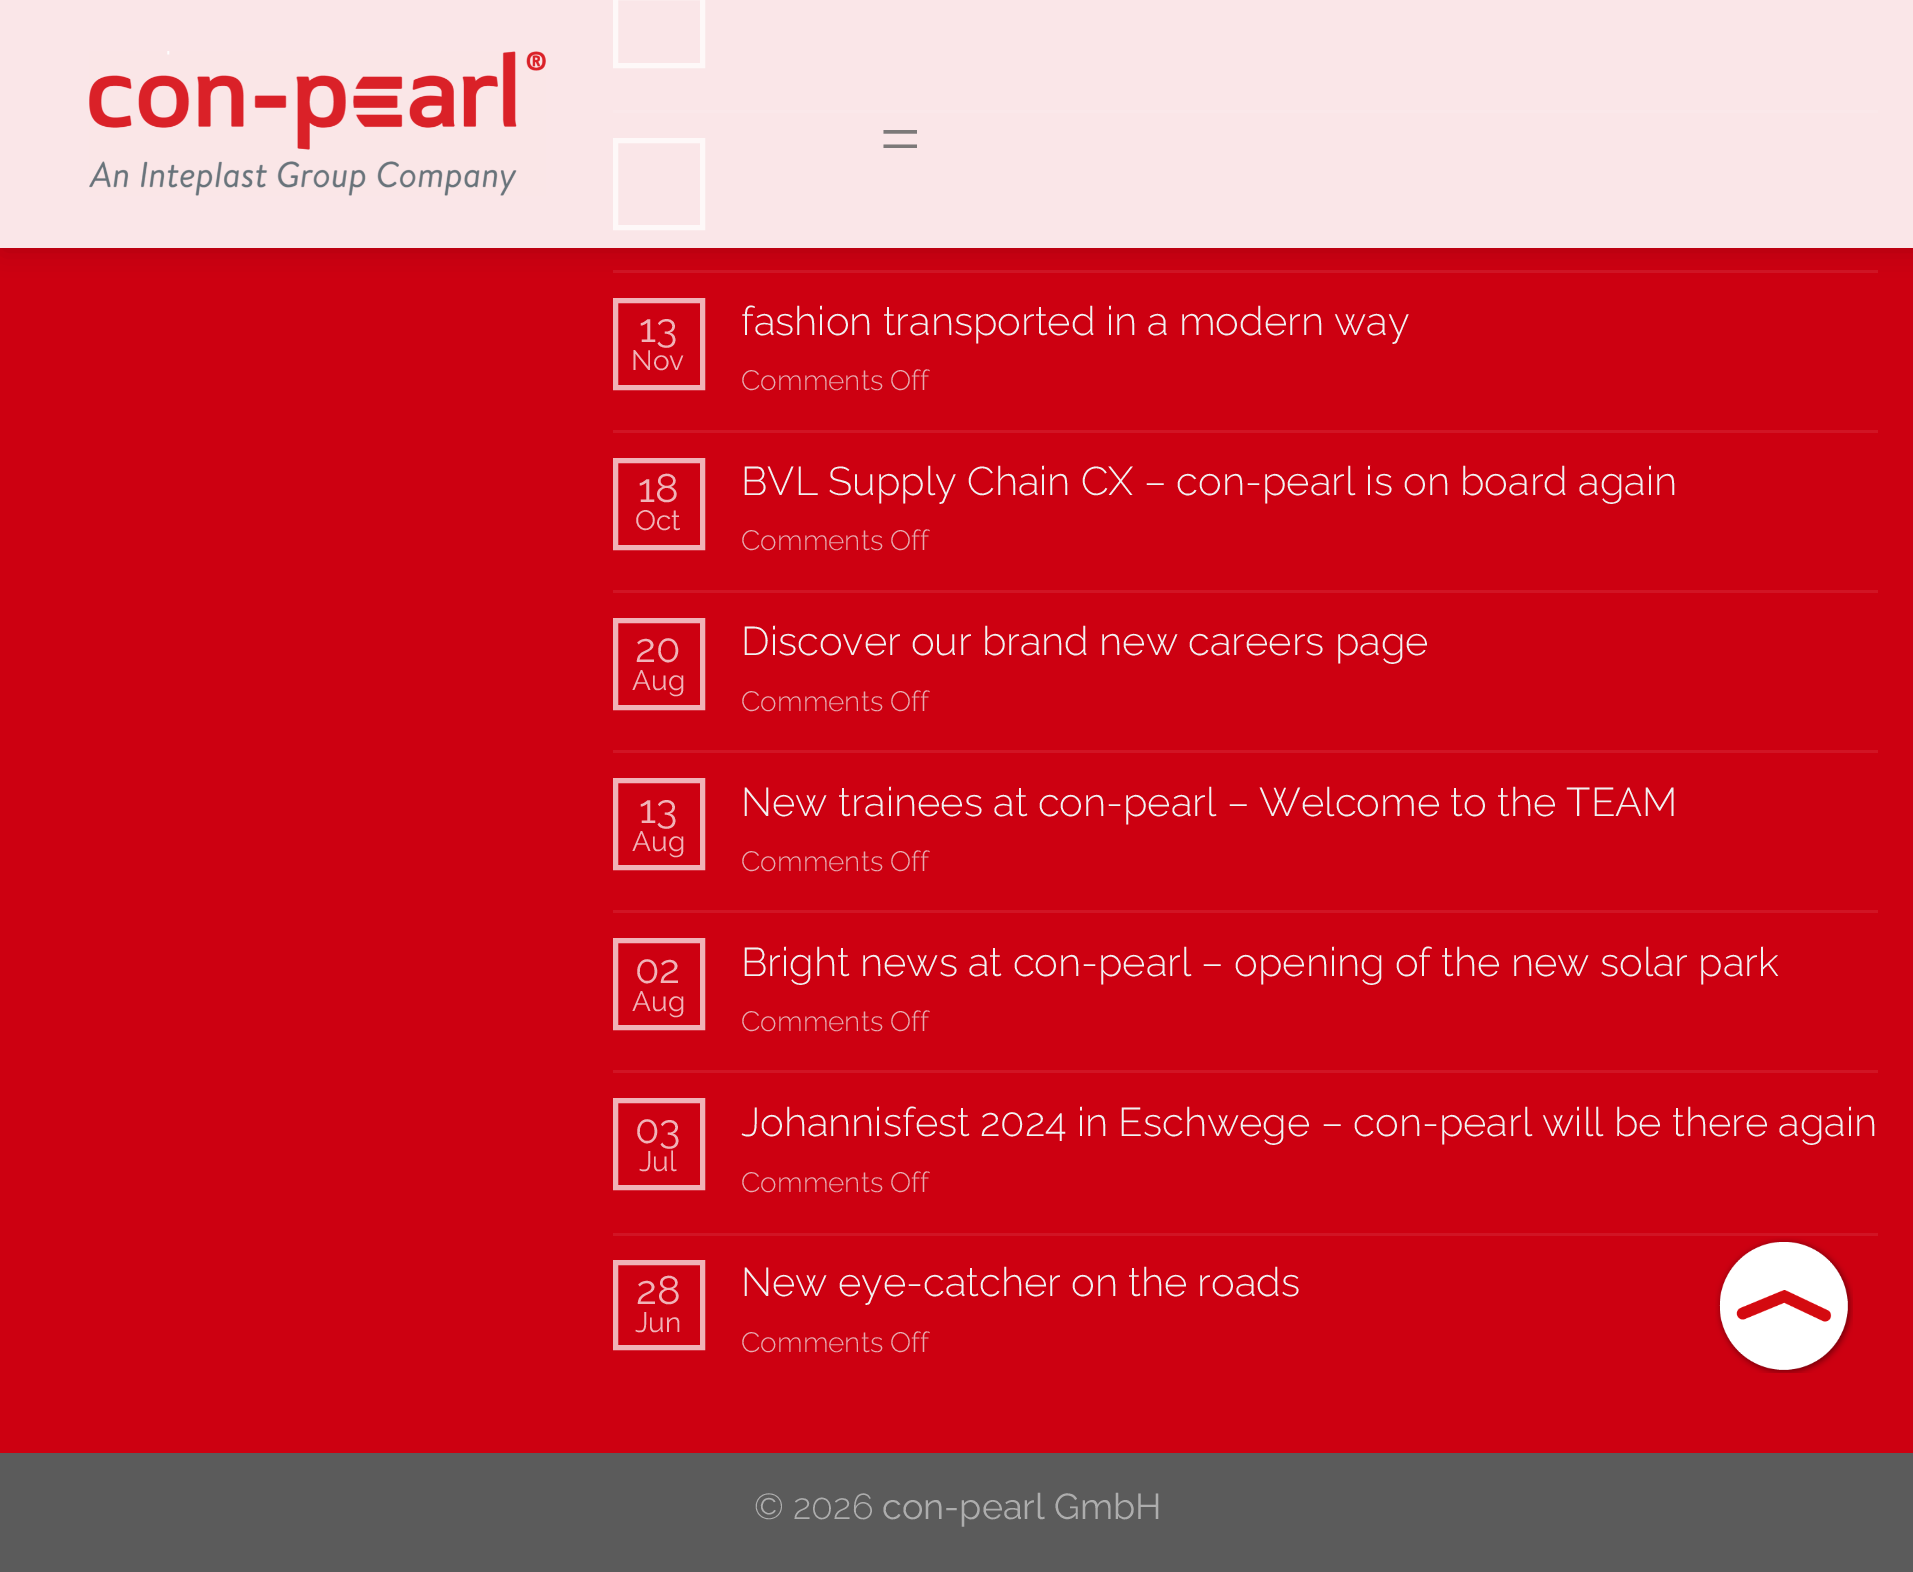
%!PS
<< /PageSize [1913 1572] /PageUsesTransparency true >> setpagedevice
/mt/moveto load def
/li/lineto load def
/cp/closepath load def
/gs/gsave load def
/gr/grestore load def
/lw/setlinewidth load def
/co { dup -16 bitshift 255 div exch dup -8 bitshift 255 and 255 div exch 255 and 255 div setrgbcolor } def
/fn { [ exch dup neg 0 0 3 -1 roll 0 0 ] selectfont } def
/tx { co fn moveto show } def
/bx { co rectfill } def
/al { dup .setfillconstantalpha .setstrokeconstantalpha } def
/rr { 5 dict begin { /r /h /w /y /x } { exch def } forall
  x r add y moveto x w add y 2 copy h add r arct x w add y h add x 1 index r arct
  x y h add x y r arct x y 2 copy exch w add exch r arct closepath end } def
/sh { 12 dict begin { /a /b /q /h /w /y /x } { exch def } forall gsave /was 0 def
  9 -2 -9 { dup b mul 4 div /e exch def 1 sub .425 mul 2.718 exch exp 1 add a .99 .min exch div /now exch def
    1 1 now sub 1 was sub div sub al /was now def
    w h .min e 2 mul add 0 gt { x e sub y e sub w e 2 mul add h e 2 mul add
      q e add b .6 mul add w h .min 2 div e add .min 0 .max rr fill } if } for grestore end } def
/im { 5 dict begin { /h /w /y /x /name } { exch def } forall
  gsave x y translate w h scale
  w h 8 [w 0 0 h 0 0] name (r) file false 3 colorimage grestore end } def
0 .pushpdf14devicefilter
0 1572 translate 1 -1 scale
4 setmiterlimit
0 0 1913 1572 16#CD0011 bx
16#F0B3B8 co
5 lw
615.5 -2.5 87 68 rectstroke
613 110 1265 3 16#D11424 bx
16#F0B3B8 co
615.5 140.5 87 87 rectstroke
613 270 1265 3 16#D11424 bx
gs
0 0 mt 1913 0 li 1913 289 li 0 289 li cp 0 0 mt 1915 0 li 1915 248 li 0 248 li cp eoclip newpath
16#000000 co
3 3 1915 247 0 12.5 .15 sh
gr
0.9 al
0 0 1913 248 16#FFFFFF bx
1 al
(media/1.raw) 89 51 457 145 im
16#F0B3B8 co
615.5 300.5 87 87 rectstroke
613 430 1265 3 16#D11424 bx
16#F0B3B8 co
615.5 460.5 87 87 rectstroke
613 590 1265 3 16#D11424 bx
16#F0B3B8 co
615.5 620.5 87 87 rectstroke
613 750 1265 3 16#D11424 bx
16#F0B3B8 co
615.5 780.5 87 87 rectstroke
613 910 1265 3 16#D11424 bx
16#F0B3B8 co
615.5 940.5 87 87 rectstroke
613 1070 1265 3 16#D11424 bx
16#F0B3B8 co
615.5 1100.5 87 87 rectstroke
613 1233 1265 3 16#D11424 bx
16#F0B3B8 co
615.5 1262.5 87 85 rectstroke
0 1453 1913 119 16#5B5B5B bx
(media/2.raw) 1715 1237 138 136 im
(=) 880 163 /LiberationSerif-Regular 72 16#7C7979 tx
(13) 639 342 /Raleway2-Thin 40 16#F0B3B8 tx
(Nov) 631 370 /Raleway2-Thin 28 16#F0B3B8 tx
(fashion transported in a modern way) 741 335 /Raleway-Thin 40 16#F1F1F1 tx
(Comments Off) 741 390 /Raleway-Thin 28 16#E6A9AE tx
(18) 638 502 /Raleway2-Thin 40 16#F0B3B8 tx
(Oct) 635 530 /Raleway2-Thin 28 16#F0B3B8 tx
(BVL Supply Chain CX – con-pearl is on board again) 741 495 /Raleway-Thin 40 16#F1F1F1 tx
(Comments Off) 741 550 /Raleway-Thin 28 16#E6A9AE tx
(20) 635 662 /Raleway2-Thin 40 16#F0B3B8 tx
(Aug) 632 690 /Raleway2-Thin 28 16#F0B3B8 tx
(Discover our brand new careers page) 741 655 /Raleway-Thin 40 16#F1F1F1 tx
(Comments Off) 741 711 /Raleway-Thin 28 16#E6A9AE tx
(13) 639 823 /Raleway2-Thin 40 16#F0B3B8 tx
(Aug) 632 851 /Raleway2-Thin 28 16#F0B3B8 tx
(New trainees at con-pearl – Welcome to the TEAM) 741 816 /Raleway-Thin 40 16#F1F1F1 tx
(Comments Off) 741 871 /Raleway-Thin 28 16#E6A9AE tx
(02) 635 983 /Raleway2-Thin 40 16#F0B3B8 tx
(Aug) 632 1011 /Raleway2-Thin 28 16#F0B3B8 tx
(Bright news at con-pearl – opening of the new solar park) 741 976 /Raleway-Thin 40 16#F1F1F1 tx
(Comments Off) 741 1031 /Raleway-Thin 28 16#E6A9AE tx
(03) 635 1143 /Raleway2-Thin 40 16#F0B3B8 tx
(Jul) 639 1171 /Raleway2-Thin 28 16#F0B3B8 tx
(Johannisfest 2024 in Eschwege – con-pearl will be there again) 741 1136 /Raleway-Thin 40 16#F1F1F1 tx
(Comments Off) 741 1192 /Raleway-Thin 28 16#E6A9AE tx
(28) 636 1304 /Raleway2-Thin 40 16#F0B3B8 tx
(Jun) 635 1332 /Raleway2-Thin 28 16#F0B3B8 tx
(New eye-catcher on the roads) 741 1296 /Raleway-Thin 40 16#F1F1F1 tx
(Comments Off) 741 1352 /Raleway-Thin 28 16#E6A9AE tx
(© 2026) 754 1519 /Raleway-Thin 36 16#ADADAD tx
(con-pearl GmbH) 882 1519 /Raleway2-Thin 36 16#ADADAD tx
.poppdf14devicefilter showpage
